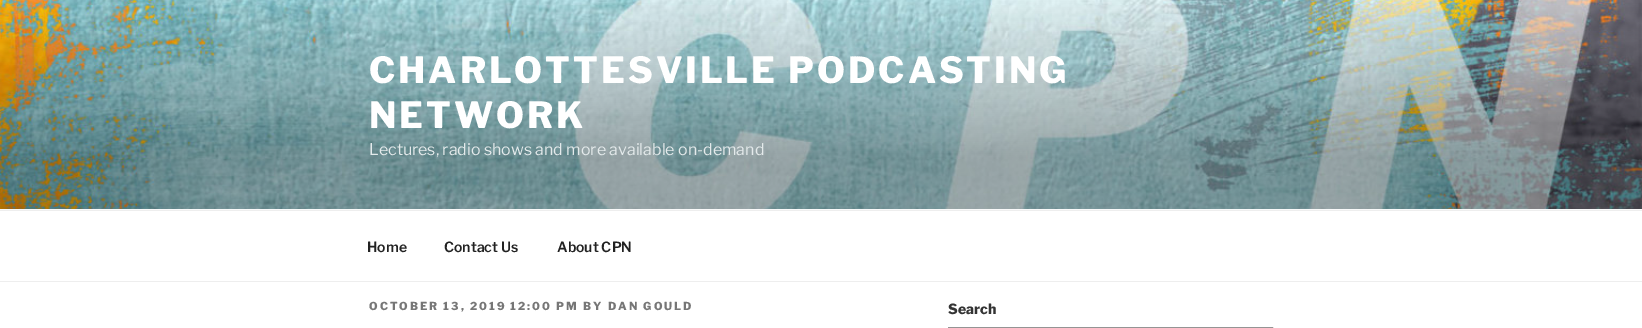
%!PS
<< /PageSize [1642 328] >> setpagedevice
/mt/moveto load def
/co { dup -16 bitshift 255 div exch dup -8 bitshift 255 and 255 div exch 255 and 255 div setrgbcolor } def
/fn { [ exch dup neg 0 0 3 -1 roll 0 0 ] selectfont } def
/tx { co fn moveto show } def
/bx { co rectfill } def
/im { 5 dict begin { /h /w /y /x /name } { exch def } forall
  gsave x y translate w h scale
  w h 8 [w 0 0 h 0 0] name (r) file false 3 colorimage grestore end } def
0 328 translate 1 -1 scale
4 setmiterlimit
0 0 1642 328 16#FFFFFF bx
0 209 1642 1 16#FAFAFA bx
(media/1.raw) 0 0 1642 209 im
0 210 1642 1 16#EEEEEE bx
0 281 1642 1 16#EEEEEE bx
16#949494 co
948.5 327.5 324 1 rectstroke
/LibreFranklin-Thin 36 fn
16#FFFFFF co
369 83 mt 2.9 0 (CHARLOTTESVILLE PODCASTING) ashow
369 128 mt 2.9 0 (NETWORK) ashow
(Lectures, radio shows and more available on-demand) 369 155 /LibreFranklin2-Thin 16 16#E4EAEB tx
(Home) 367 252 /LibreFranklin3-Thin 14 16#222222 tx
(Contact Us) 444 252 /LibreFranklin3-Thin 14 16#222222 tx
(About CPN) 557 252 /LibreFranklin3-Thin 14 16#222222 tx
/LibreFranklin-Thin 11 fn
16#767676 co
369 310 mt 2 0 (OCTOBER 13, 2019 12:00 PM BY DAN GOULD) ashow
(Search) 948 314 /LibreFranklin-Thin 14 16#333333 tx
showpage
